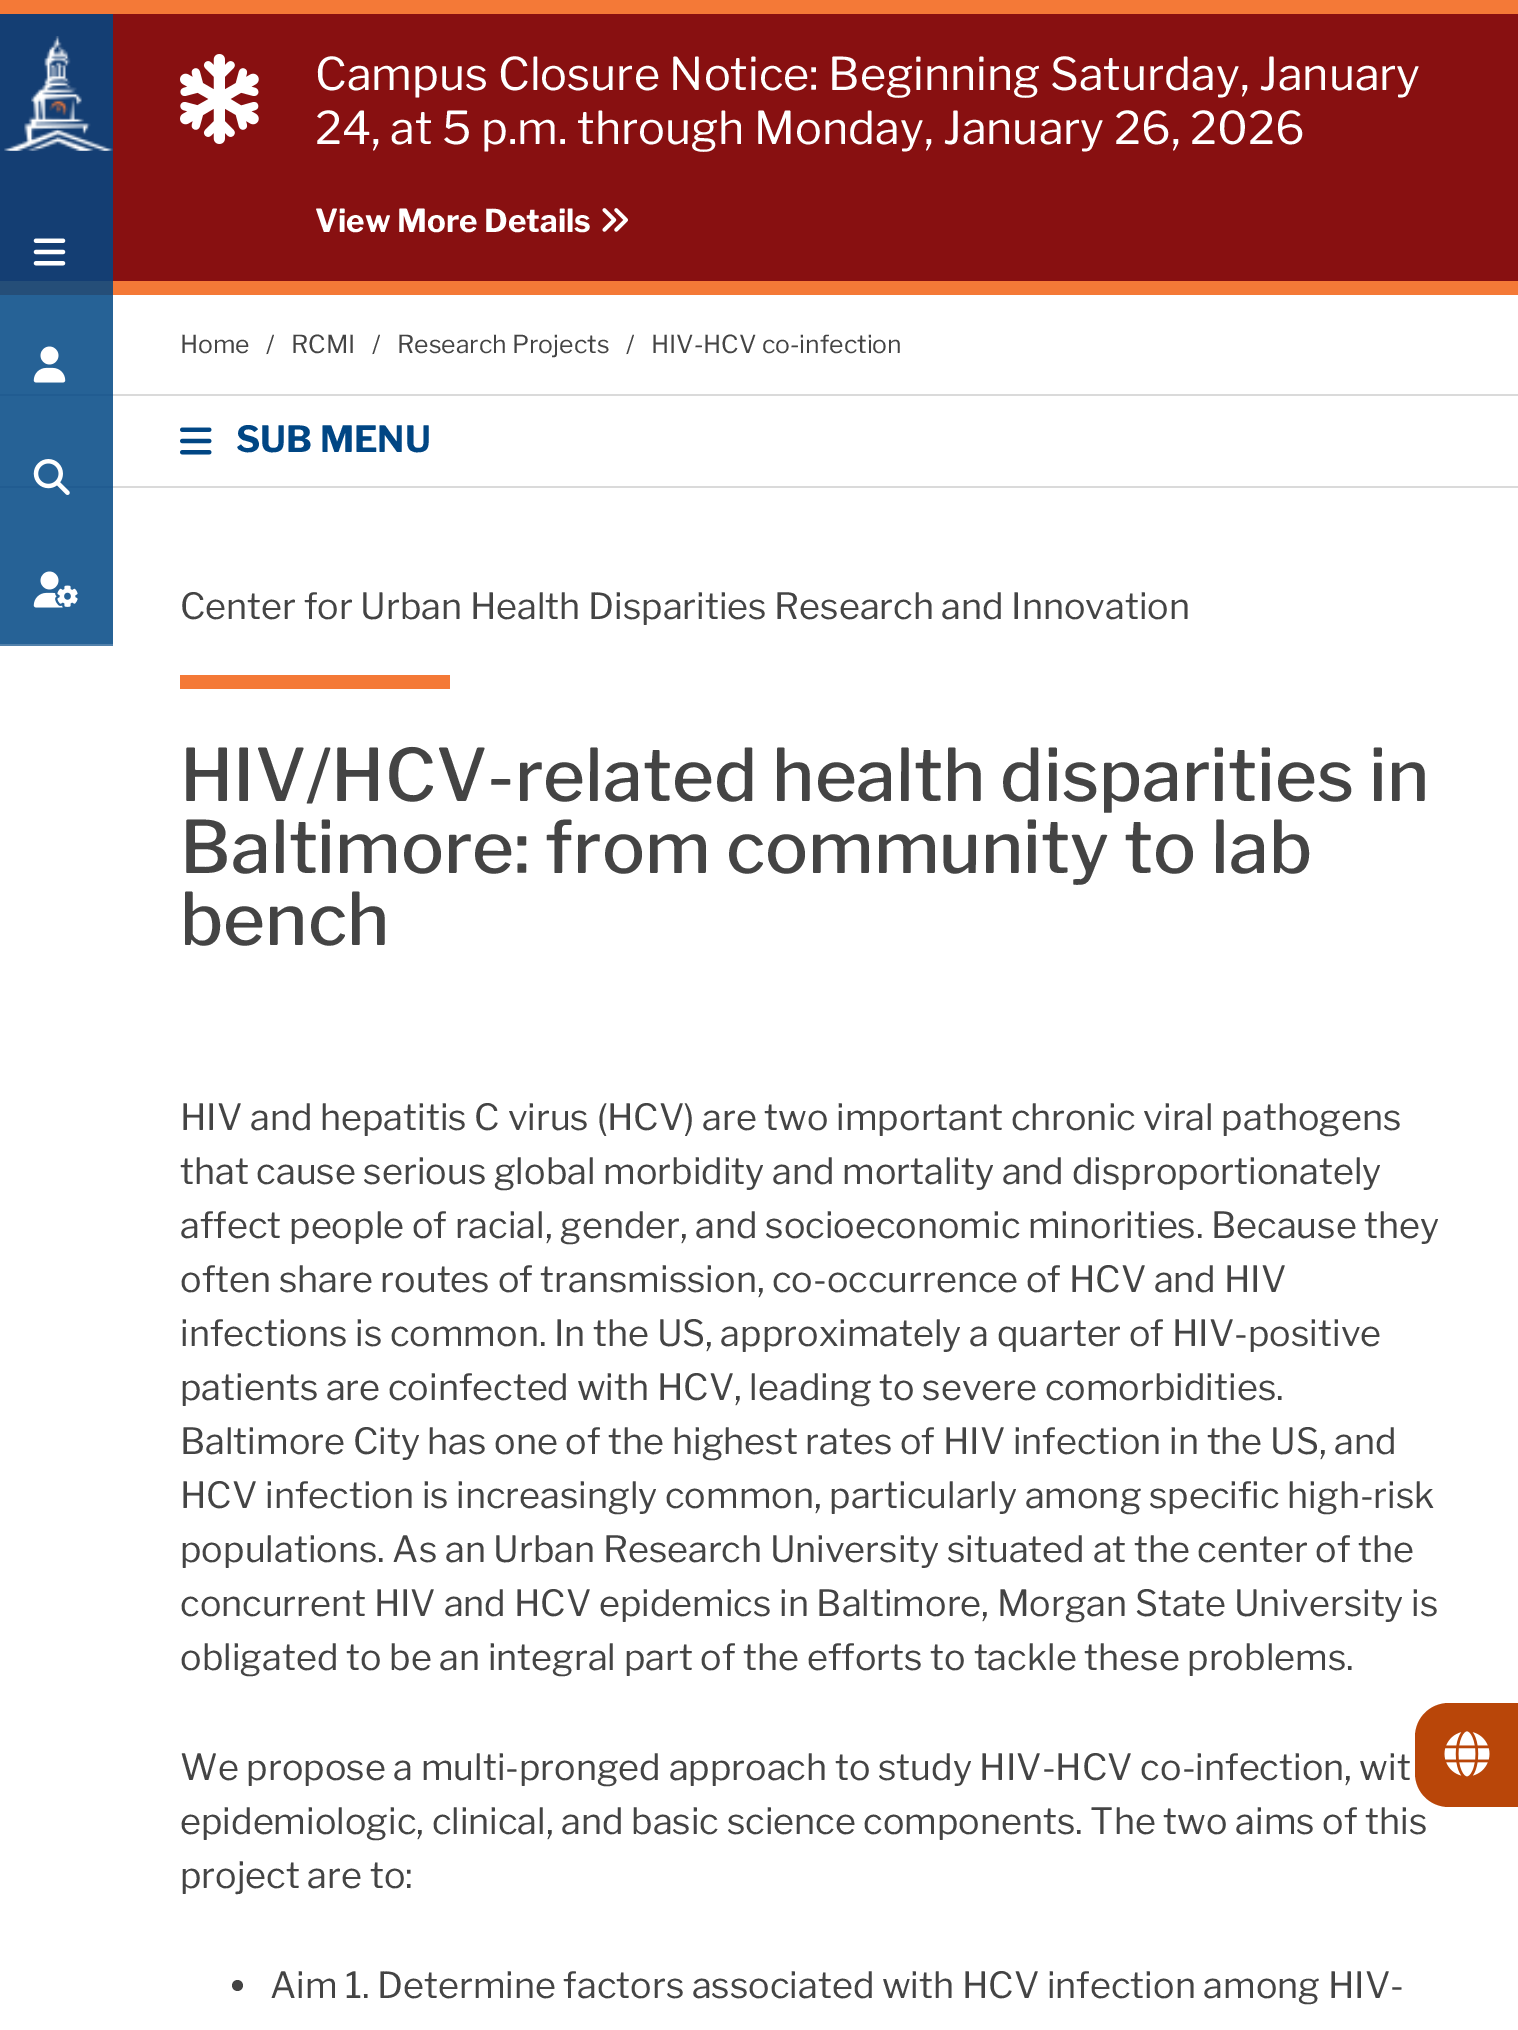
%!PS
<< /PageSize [1518 2030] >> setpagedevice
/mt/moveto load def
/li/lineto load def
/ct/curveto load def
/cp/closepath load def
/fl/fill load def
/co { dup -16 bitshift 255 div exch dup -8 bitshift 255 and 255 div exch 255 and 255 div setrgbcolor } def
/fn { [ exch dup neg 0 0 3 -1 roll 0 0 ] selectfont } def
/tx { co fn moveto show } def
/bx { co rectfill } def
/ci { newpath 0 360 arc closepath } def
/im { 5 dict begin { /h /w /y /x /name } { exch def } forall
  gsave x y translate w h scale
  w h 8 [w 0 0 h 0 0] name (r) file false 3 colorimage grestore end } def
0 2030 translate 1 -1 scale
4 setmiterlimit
0 0 1518 2030 16#FFFFFF bx
0 0 1518 14 16#F47937 bx
0 14 113 267 16#143E73 bx
(media/1.raw) 4 36 109 115 im
(media/2.raw) 33 238 33 28 im
0 295 113 349 16#266296 bx
(media/3.raw) 33 346 33 37 im
0 486 113 2 16#215C91 bx
(media/4.raw) 33 459 37 36 im
0 644 113 2 16#5281AB bx
(media/5.raw) 33 571 45 37 im
113 14 1405 267 16#881011 bx
113 281 1405 14 16#F47937 bx
0 281 113 14 16#254E78 bx
(media/6.raw) 180 54 79 90 im
(media/7.raw) 602 208 26 24 im
113 394 1405 2 16#DADADA bx
0 394 113 2 16#215C91 bx
113 486 1405 2 16#DADADA bx
(media/8.raw) 180 427 32 28 im
180 675 270 14 16#F47937 bx
16#444444 co
237.5 1985.5 5.5 ci fl
16#B94609 co
1449 1703 mt 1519 1703 li 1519 1807 li 1449 1807 li 1430 1807 1415 1792 1415 1773 ct 1415 1737 li 1415 1718 1430 1703 1449 1703 ct cp fl
(media/9.raw) 1444 1731 46 46 im
(Campus Closure Notice: Beginning Saturday, January) 315 90 /LibreFranklin-Regular 45 16#FFFFFF tx
(24, at 5 p.m. through Monday, January 26, 2026) 315 144 /LibreFranklin-Regular 45 16#FFFFFF tx
(View More Details) 315 232 /LibreFranklin-Bold 31.5 16#FFFFFF tx
(Home) 180 353 /LibreFranklin-Regular 24.75 16#444444 tx
(/) 266 353 /LibreFranklin-Regular 24.75 16#444444 tx
(RCMI) 291 353 /LibreFranklin-Regular 24.75 16#444444 tx
(/) 372 353 /LibreFranklin-Regular 24.75 16#444444 tx
(Research Projects) 397 353 /LibreFranklin-Regular 24.75 16#444444 tx
(/) 626 353 /LibreFranklin-Regular 24.75 16#444444 tx
(HIV-HCV co-infection) 651 353 /LibreFranklin-Regular 24.75 16#444444 tx
(SUB MENU) 236 452 /LibreFranklin-Bold 36 16#004684 tx
(Center for Urban Health Disparities Research and Innovation) 180 619 /LibreFranklin-Regular 36 16#444444 tx
(HIV/HCV-related health disparities in) 180 801 /LibreFranklin-Medium 72 16#444444 tx
(Baltimore: from community to lab) 180 873 /LibreFranklin-Medium 72 16#444444 tx
(bench) 180 945 /LibreFranklin-Medium 72 16#444444 tx
(HIV and hepatitis C virus \(HCV\) are two important chronic viral pathogens) 180 1130 /LibreFranklin-Regular 36 16#444444 tx
(that cause serious global morbidity and mortality and disproportionately) 180 1184 /LibreFranklin-Regular 36 16#444444 tx
(affect people of racial, gender, and socioeconomic minorities. Because they) 180 1238 /LibreFranklin-Regular 36 16#444444 tx
(often share routes of transmission, co-occurrence of HCV and HIV) 180 1292 /LibreFranklin-Regular 36 16#444444 tx
(infections is common. In the US, approximately a quarter of HIV-positive) 180 1346 /LibreFranklin-Regular 36 16#444444 tx
(patients are coinfected with HCV, leading to severe comorbidities.) 180 1400 /LibreFranklin-Regular 36 16#444444 tx
(Baltimore City has one of the highest rates of HIV infection in the US, and) 180 1454 /LibreFranklin-Regular 36 16#444444 tx
(HCV infection is increasingly common, particularly among specific high-risk) 180 1508 /LibreFranklin-Regular 36 16#444444 tx
(populations. As an Urban Research University situated at the center of the) 180 1562 /LibreFranklin-Regular 36 16#444444 tx
(concurrent HIV and HCV epidemics in Baltimore, Morgan State University is) 180 1616 /LibreFranklin-Regular 36 16#444444 tx
(obligated to be an integral part of the efforts to tackle these problems.) 180 1670 /LibreFranklin-Regular 36 16#444444 tx
(We propose a multi-pronged approach to study HIV-HCV co-infection, wit) 180 1780 /LibreFranklin-Regular 36 16#444444 tx
(epidemiologic, clinical, and basic science components. The two aims of this) 180 1834 /LibreFranklin-Regular 36 16#444444 tx
(project are to:) 180 1888 /LibreFranklin-Regular 36 16#444444 tx
(Aim 1. Determine factors associated with HCV infection among HIV-) 270 1998 /LibreFranklin-Regular 36 16#444444 tx
showpage
